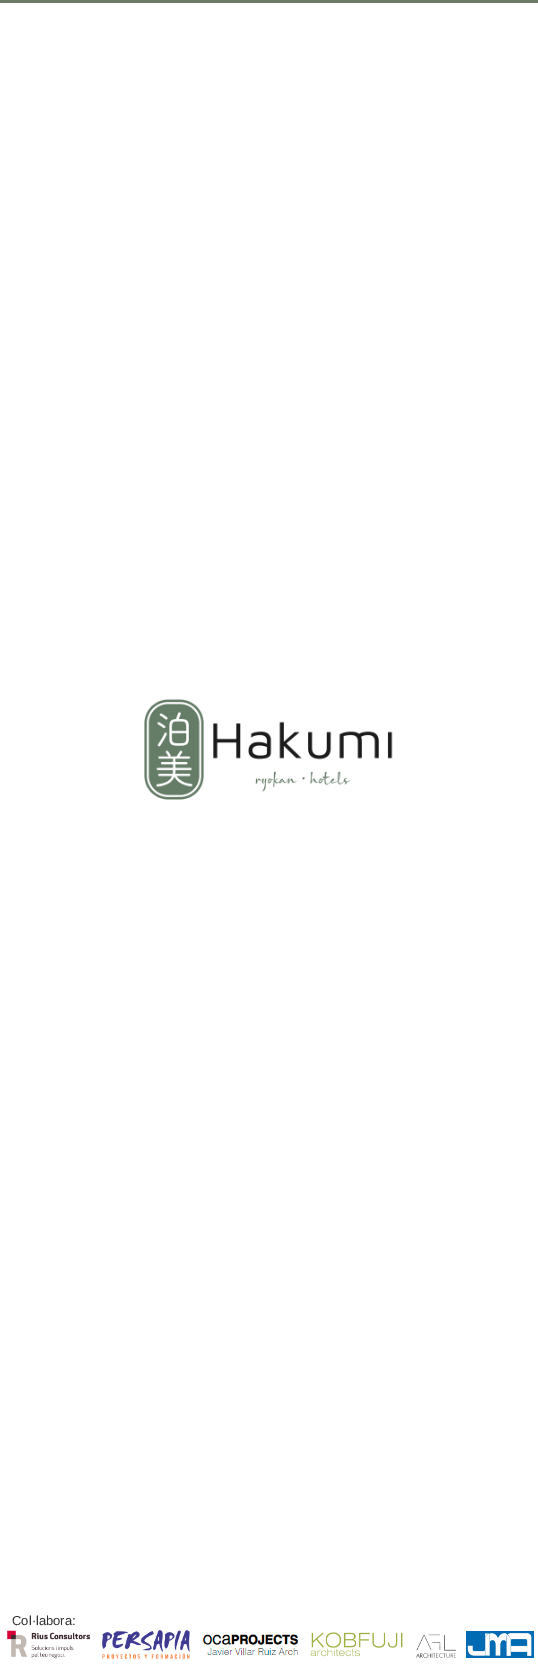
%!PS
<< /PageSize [538 1666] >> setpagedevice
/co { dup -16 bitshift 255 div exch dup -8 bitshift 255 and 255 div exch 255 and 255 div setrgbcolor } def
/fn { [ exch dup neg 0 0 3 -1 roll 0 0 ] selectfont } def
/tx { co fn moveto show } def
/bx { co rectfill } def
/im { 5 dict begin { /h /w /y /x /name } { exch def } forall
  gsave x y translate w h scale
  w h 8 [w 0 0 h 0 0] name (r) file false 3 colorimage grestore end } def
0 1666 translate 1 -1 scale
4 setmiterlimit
0 0 538 1666 16#FFFFFF bx
0 0 538 3 16#6C7B68 bx
(media/1.raw) 144 699 249 101 im
(media/2.raw) 7 1630 84 29 im
(media/3.raw) 102 1630 88 29 im
(media/4.raw) 202 1634 97 21 im
(media/5.raw) 310 1632 93 25 im
(media/6.raw) 416 1634 40 24 im
(media/7.raw) 466 1631 68 27 im
(Col·labora:) 12 1625 /LiberationSans-Regular 13 16#333333 tx
showpage
